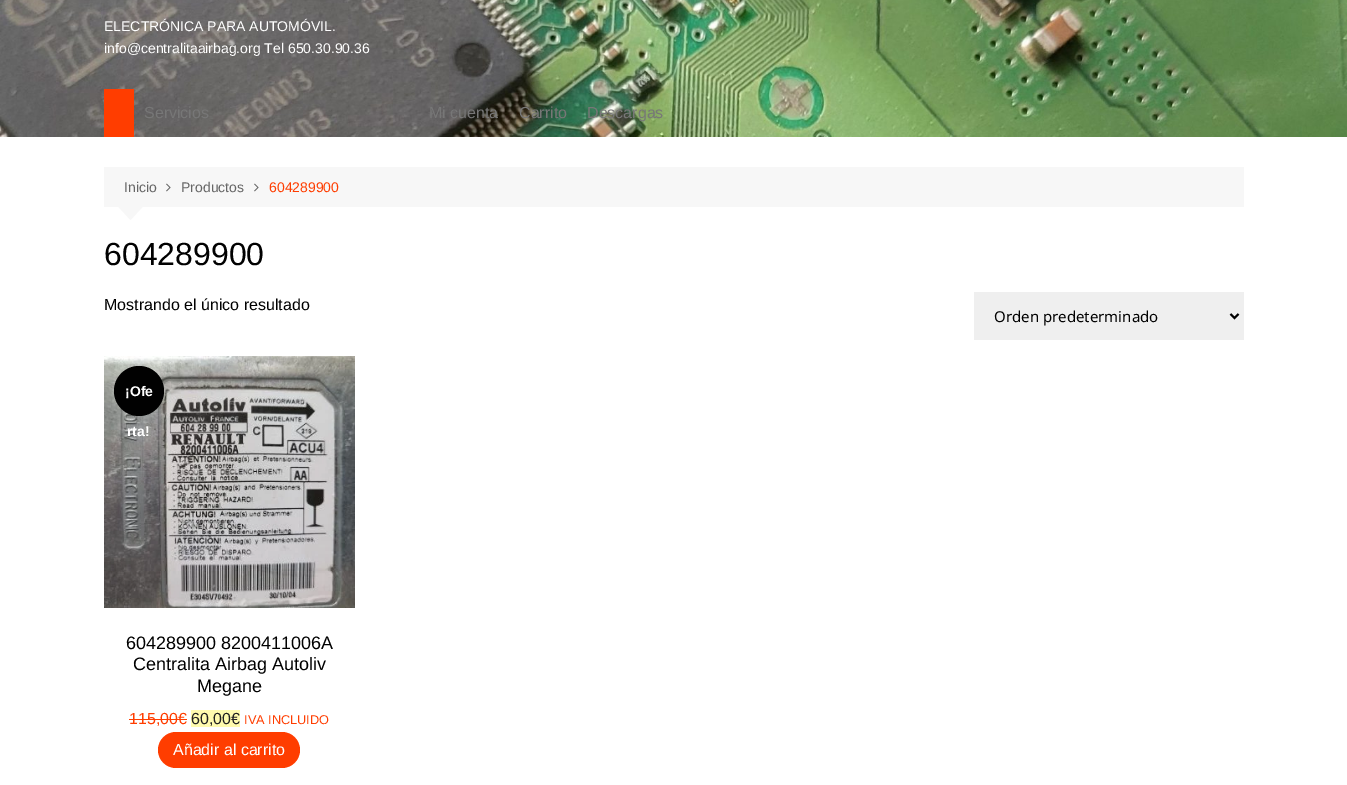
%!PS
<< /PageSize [1347 785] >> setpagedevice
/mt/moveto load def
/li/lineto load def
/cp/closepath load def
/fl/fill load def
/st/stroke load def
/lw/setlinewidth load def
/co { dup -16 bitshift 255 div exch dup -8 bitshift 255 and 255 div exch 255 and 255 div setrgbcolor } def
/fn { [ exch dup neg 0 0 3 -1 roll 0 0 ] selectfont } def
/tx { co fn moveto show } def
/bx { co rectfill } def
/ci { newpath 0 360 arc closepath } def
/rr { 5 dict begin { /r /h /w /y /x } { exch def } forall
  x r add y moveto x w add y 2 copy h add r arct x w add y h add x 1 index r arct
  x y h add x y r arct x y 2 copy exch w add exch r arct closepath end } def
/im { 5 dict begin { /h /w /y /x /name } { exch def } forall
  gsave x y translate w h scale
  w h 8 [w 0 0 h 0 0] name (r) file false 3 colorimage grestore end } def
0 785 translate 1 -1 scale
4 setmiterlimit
0 0 1347 785 16#FFFFFF bx
(media/1.raw) 0 0 1347 137 im
104 89 30 48 16#FF3D00 bx
104 167 1140 40 16#F7F7F7 bx
(media/2.raw) 166 183 5 9 im
(media/2.raw) 254 183 5 9 im
118.5 207 mt 142.5 207 li 130.5 220 li cp fl
974 292 270 48 16#EFEFEF bx
16#000000 co
2 lw
1230.5 314 mt 1234.5 318 li 1238.5 314 li st
(media/3.raw) 104 356 251 252 im
16#010101 co
139 391 25 ci fl
129 719 49 1 16#FF3D00 bx
178 719 9 1 16#FF3D00 bx
191 710 49 17 16#FFFBAE bx
16#FF3D00 co
158 732 142 36 18 rr fl
(ELECTRÓNICA PARA AUTOMÓVIL.) 104 31 /LiberationSans-Regular 14 16#FFFFFF tx
(info@centralitaairbag.org Tel 650.30.90.36) 104 53 /LiberationSans-Regular 14 16#FFFFFF tx
(Servicios) 144 118 /LiberationSans-Regular 16 16#777777 tx
(Mi cuenta) 429 118 /LiberationSans-Regular 16 16#777777 tx
(Carrito) 519 118 /LiberationSans-Regular 16 16#777777 tx
(Descargas) 587 118 /LiberationSans-Regular 16 16#777777 tx
(Inicio) 124 192 /LiberationSans-Regular 14 16#666666 tx
(Productos) 181 192 /LiberationSans-Regular 14 16#666666 tx
(604289900) 269 192 /LiberationSans-Regular 14 16#FF3D00 tx
(604289900) 104 265 /LiberationSans-Regular 32 16#010101 tx
(Mostrando el único resultado) 104 310 /LiberationSans-Regular 16 16#010101 tx
(Orden predeterminado) 994 322 /NotoSans-Regular 15 16#010101 tx
(¡Ofe) 125 396 /LiberationSans-Bold 14 16#FFFFFF tx
(rta!) 127 436 /LiberationSans-Bold 14 16#FFFFFF tx
(604289900 8200411006A) 126 649 /LiberationSans-Regular 18 16#010101 tx
(Centralita Airbag Autoliv) 133 670 /LiberationSans-Regular 18 16#010101 tx
(Megane) 197 692 /LiberationSans-Regular 18 16#010101 tx
(115,00) 129 724 /LiberationSans-Regular 16 16#FF3D00 tx
(€) 178 724 /LiberationSans-Regular 16 16#FF3D00 tx
(60,00€) 191 724 /LiberationSans-Regular 16 16#222222 tx
(IVA INCLUIDO) 244 724 /LiberationSans-Regular 12.75 16#FF3D00 tx
(Añadir al carrito) 173 755 /LiberationSans-Regular 16 16#FFFFFF tx
showpage
